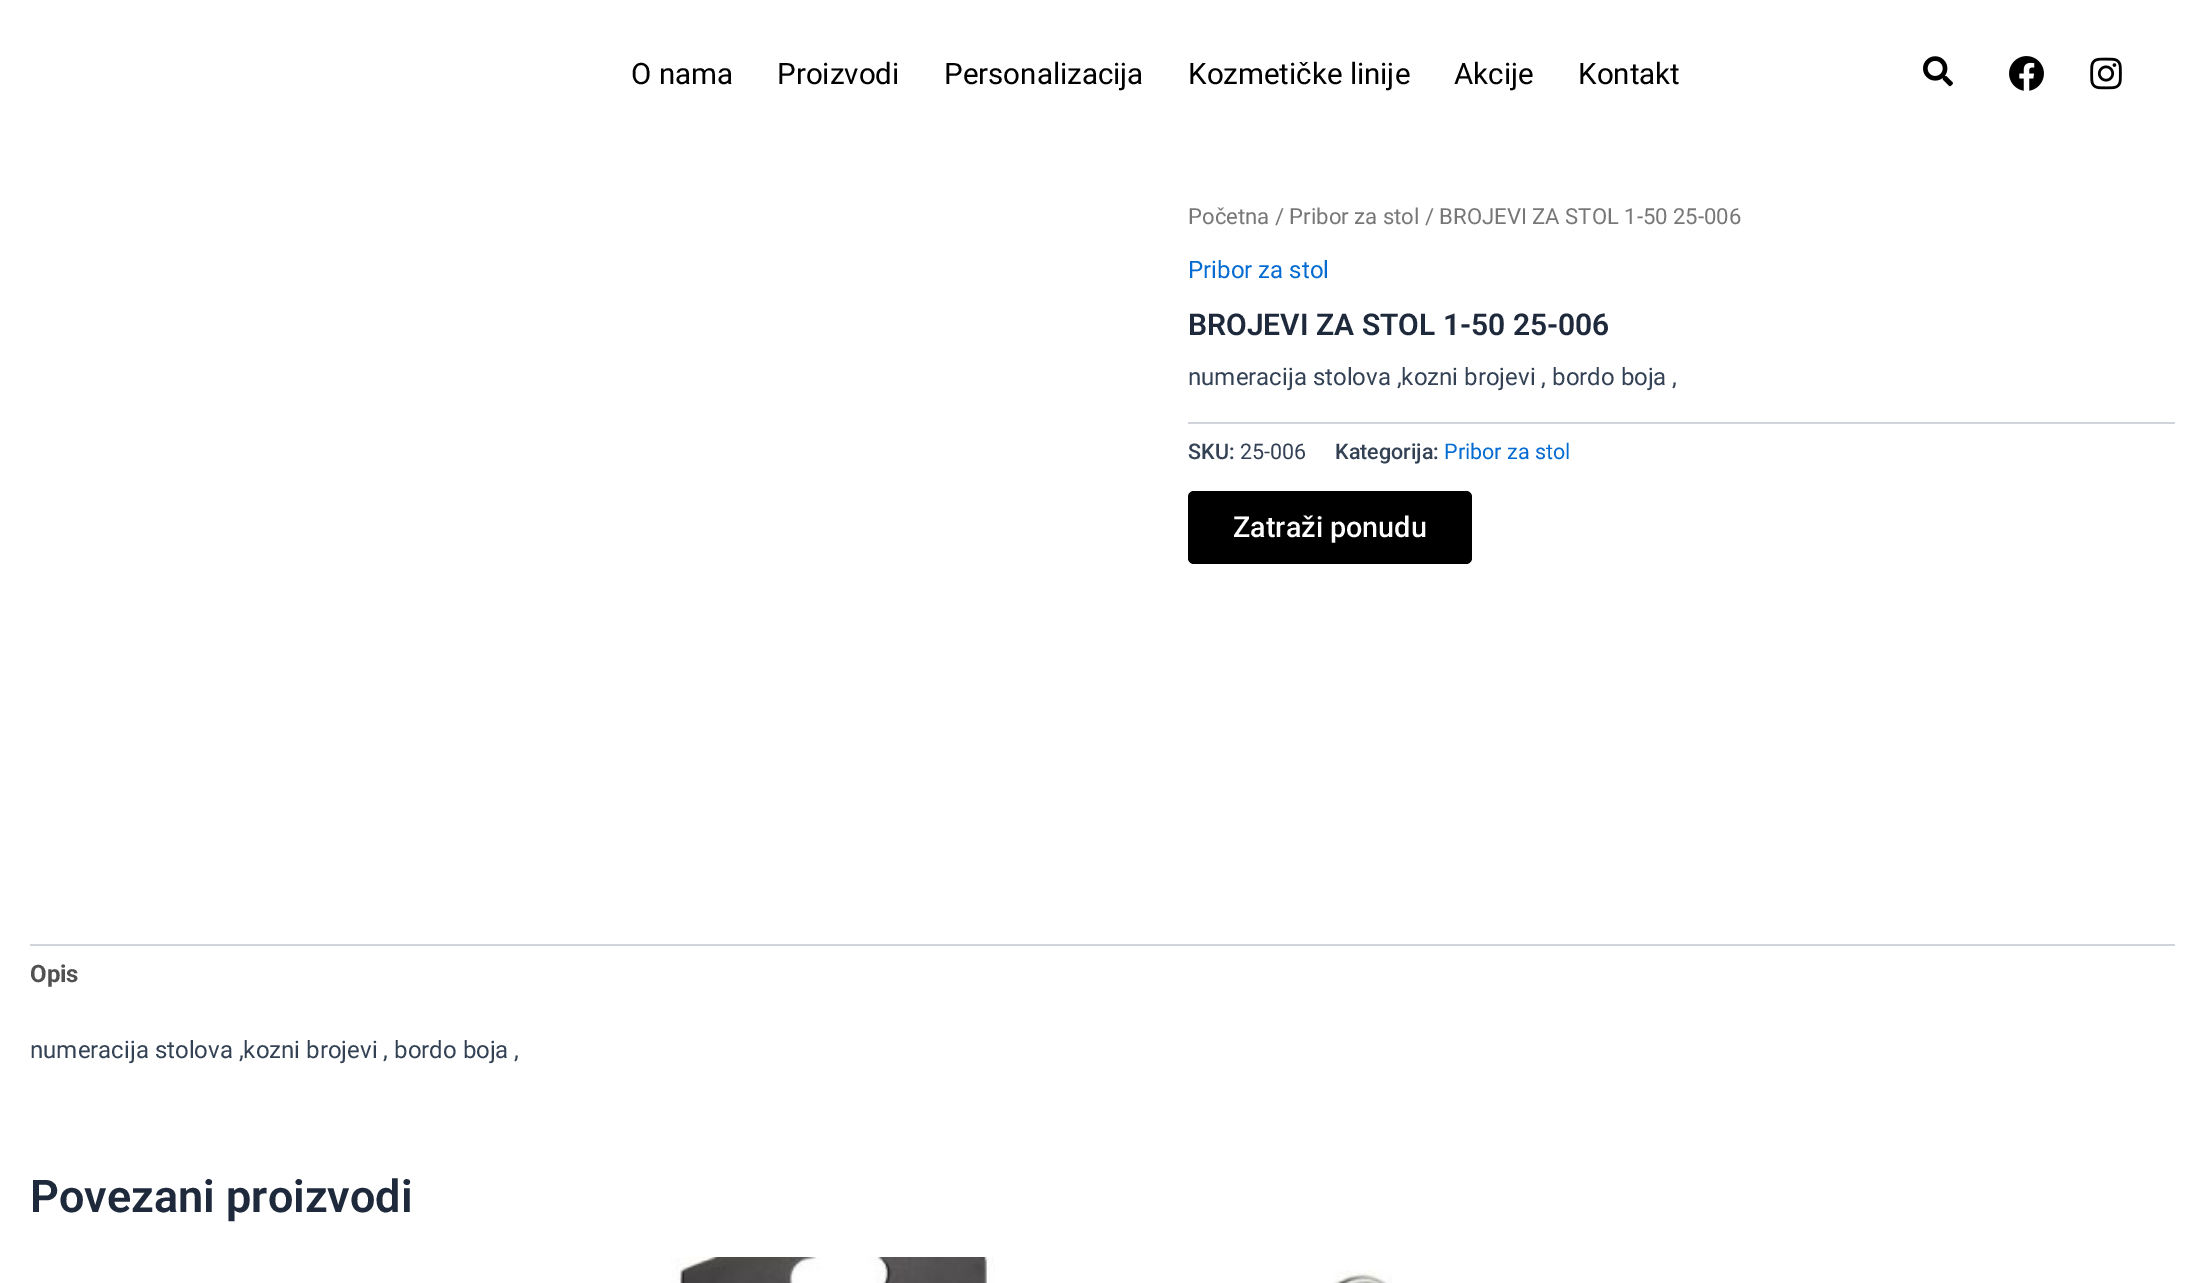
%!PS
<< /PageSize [2205 1283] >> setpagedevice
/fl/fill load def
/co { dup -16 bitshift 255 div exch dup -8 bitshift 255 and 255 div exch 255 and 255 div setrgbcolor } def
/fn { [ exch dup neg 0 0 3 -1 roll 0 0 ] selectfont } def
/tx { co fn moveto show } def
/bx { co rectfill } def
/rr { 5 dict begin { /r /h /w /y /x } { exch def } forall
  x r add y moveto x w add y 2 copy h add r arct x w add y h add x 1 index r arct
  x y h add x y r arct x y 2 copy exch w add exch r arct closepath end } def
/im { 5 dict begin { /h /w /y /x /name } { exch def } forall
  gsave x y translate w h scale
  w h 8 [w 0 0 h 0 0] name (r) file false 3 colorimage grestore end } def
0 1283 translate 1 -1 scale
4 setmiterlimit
0 0 2205 1283 16#FFFFFF bx
(media/1.raw) 1923 56 30 31 im
(media/2.raw) 2009 56 35 35 im
(media/3.raw) 2090 57 32 33 im
1188 422 987 2 16#D1D5DB bx
16#000000 co
1188 491 284 73 6 rr fl
30 944 2145 2 16#D1D5DB bx
(media/4.raw) 671 1257 324 26 im
(media/5.raw) 1333 1270 59 13 im
(O nama) 631 84 /Roboto-Regular 29.5 16#000000 tx
(Proizvodi) 777 84 /Roboto-Regular 29.5 16#000000 tx
(Personalizacija) 944 84 /Roboto-Regular 29.5 16#000000 tx
(Kozmetičke linije) 1188 84 /Roboto-Regular 29.5 16#000000 tx
(Akcije) 1454 84 /Roboto-Regular 29.5 16#000000 tx
(Kontakt) 1578 84 /Roboto-Regular 29.5 16#000000 tx
(Početna / Pribor za stol / BROJEVI ZA STOL 1-50 25-006) 1188 224 /Roboto-Regular 22.1 16#777777 tx
(Pribor za stol) 1188 278 /Roboto-Regular 24 16#046BD2 tx
(BROJEVI ZA STOL 1-50 25-006) 1188 335 /Roboto-SemiBold 30 16#1E293B tx
(numeracija stolova ,kozni brojevi , bordo boja ,) 1188 385 /Roboto-Regular 24 16#334155 tx
(SKU:) 1188 459 /Roboto-Medium 21.5 16#334155 tx
(25-006) 1240 459 /Roboto-Regular 21.5 16#334155 tx
(Kategorija:) 1335 459 /Roboto-Medium 21.5 16#334155 tx
(Pribor za stol) 1444 459 /Roboto-Regular 21.5 16#046BD2 tx
(Zatraži ponudu) 1233 537 /Roboto-Medium 28.75 16#FFFFFF tx
(Opis) 30 982 /Roboto-Bold 24 16#515151 tx
(numeracija stolova ,kozni brojevi , bordo boja ,) 30 1058 /Roboto-Regular 24 16#334155 tx
(Povezani proizvodi) 30 1212 /Roboto-SemiBold 45 16#1E293B tx
showpage
